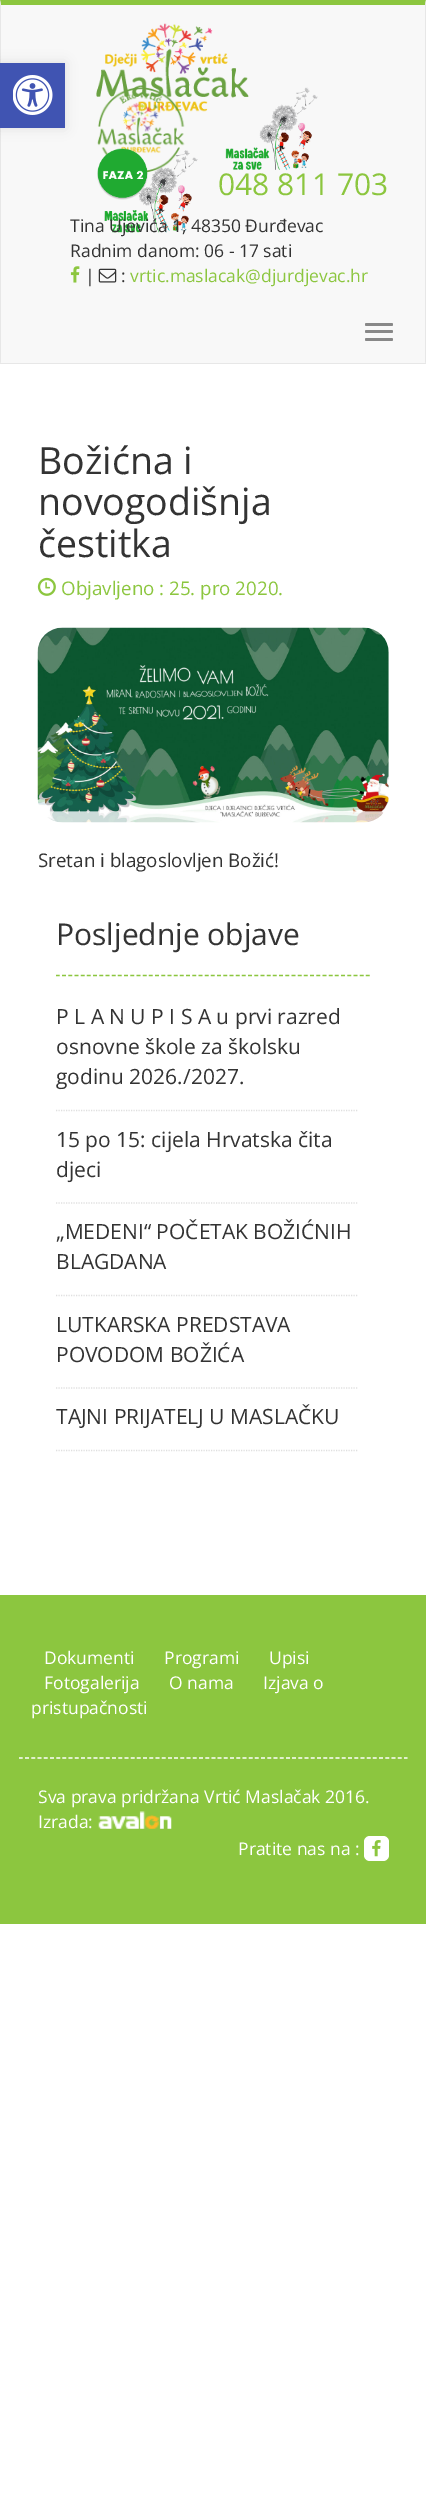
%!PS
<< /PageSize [426 2508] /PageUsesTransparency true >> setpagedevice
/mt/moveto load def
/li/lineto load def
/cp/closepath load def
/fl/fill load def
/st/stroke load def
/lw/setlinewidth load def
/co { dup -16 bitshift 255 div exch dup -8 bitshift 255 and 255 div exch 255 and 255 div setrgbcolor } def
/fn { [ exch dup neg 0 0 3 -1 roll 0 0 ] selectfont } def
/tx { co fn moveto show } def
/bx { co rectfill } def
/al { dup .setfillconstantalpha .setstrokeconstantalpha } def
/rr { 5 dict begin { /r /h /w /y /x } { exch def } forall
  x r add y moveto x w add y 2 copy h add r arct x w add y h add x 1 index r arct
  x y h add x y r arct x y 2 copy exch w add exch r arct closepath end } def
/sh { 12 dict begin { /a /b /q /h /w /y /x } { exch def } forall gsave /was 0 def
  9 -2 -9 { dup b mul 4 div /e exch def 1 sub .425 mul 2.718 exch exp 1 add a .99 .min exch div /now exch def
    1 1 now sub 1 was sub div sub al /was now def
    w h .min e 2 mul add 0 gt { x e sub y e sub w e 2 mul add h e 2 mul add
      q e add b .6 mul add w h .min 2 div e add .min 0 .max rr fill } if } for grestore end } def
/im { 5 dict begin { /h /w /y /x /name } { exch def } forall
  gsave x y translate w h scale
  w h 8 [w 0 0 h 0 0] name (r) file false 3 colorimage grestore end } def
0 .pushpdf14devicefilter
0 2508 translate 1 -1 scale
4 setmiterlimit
0 0 426 2508 16#FFFFFF bx
1 5 424 358 16#F8F8F8 bx
16#8CC63F co
0 0 mt 426 0 li 425 5 li 1 5 li cp fl
16#E7E7E7 co
426 0 mt 426 364 li 425 362 li 425 5 li cp fl
0 363 426 1 16#E7E7E7 bx
0 364 mt 0 0 li 1 5 li 1 362 li cp fl
16#000000 co
0 63 65 65 0 6 .1 sh
0 63 65 65 16#4054B2 bx
(media/1.raw) 13 75 40 40 im
(media/2.raw) 96 23 153 89 im
(media/3.raw) 97 87 88 86 im
(media/4.raw) 225 87 93 84 im
(media/5.raw) 97 148 101 85 im
(media/6.raw) 70 266 10 17 im
(media/7.raw) 98 268 19 15 im
16#888888 co
365 323 28 3 1.5 rr fl
365 330 28 3 1.5 rr fl
365 338 28 3 1.5 rr fl
(media/8.raw) 37 577 19 19 im
(media/9.raw) 37 627 352 196 im
16#8CC63F co
1.2 lw
[3.75 2.45] 0 setdash
56 975.5 mt 370 975.5 li st
16#DFDFDF co
[1.25 1.25] 0 setdash
56 1110.5 mt 357.5 1110.5 li st
56 1203 mt 357.5 1203 li st
56 1295.5 mt 357.5 1295.5 li st
56 1388 mt 357.5 1388 li st
56 1450.5 mt 357.5 1450.5 li st
0 1595 426 329 16#8CC63F bx
16#FFFFFF co
[3.75 2.46] 0 setdash
19 1758 mt 407.5 1758 li st
(media/10.raw) 98 1811 74 18 im
364 1836 25 25 6 rr fl
(media/11.raw) 372 1840 9 17 im
(048 811 703) 218 195 /OpenSans-Regular 30 16#8CC63F tx
(Tina Ujevića 1, 48350 Đurđevac) 70 232 /OpenSans-Regular 17.5 16#333333 tx
(Radnim danom: 06 - 17 sati) 70 257 /OpenSans-Regular 17.5 16#333333 tx
(|) 85 282 /OpenSans-Regular 17.5 16#333333 tx
(:) 121 282 /OpenSans-Regular 17.5 16#333333 tx
(vrtic.maslacak@djurdjevac.hr) 130 282 /OpenSans-Regular 17.5 16#8CC63F tx
(Božićna i) 38 474 /OpenSans-Regular 37.5 16#333333 tx
(novogodišnja) 38 515 /OpenSans-Regular 37.5 16#333333 tx
(čestitka) 38 557 /OpenSans-Regular 37.5 16#333333 tx
(Objavljeno : 25. pro 2020.) 61 595 /OpenSans-Regular 18.75 16#8CC63F tx
(Sretan i blagoslovljen Božić!) 38 867 /OpenSans-Regular 18.75 16#333333 tx
(Posljednje objave) 56 945 /OpenSans-Regular 30 16#333333 tx
(P L A N U P I S A u prvi razred) 56 1024 /OpenSans-Regular 21 16#333333 tx
(osnovne škole za školsku) 56 1054 /OpenSans-Regular 21 16#333333 tx
(godinu 2026./2027.) 56 1084 /OpenSans-Regular 21 16#333333 tx
(15 po 15: cijela Hrvatska čita) 56 1147 /OpenSans-Regular 21 16#333333 tx
(djeci) 56 1177 /OpenSans-Regular 21 16#333333 tx
(„MEDENI“ POČETAK BOŽIĆNIH) 56 1239 /OpenSans-Regular 21 16#333333 tx
(BLAGDANA) 56 1269 /OpenSans-Regular 21 16#333333 tx
(LUTKARSKA PREDSTAVA) 56 1332 /OpenSans-Regular 21 16#333333 tx
(POVODOM BOŽIĆA) 56 1362 /OpenSans-Regular 21 16#333333 tx
(TAJNI PRIJATELJ U MASLAČKU) 56 1424 /OpenSans-Regular 21 16#333333 tx
(Dokumenti) 44 1664 /OpenSans-Regular 17.5 16#FFFFFF tx
(Programi) 164 1664 /OpenSans-Regular 17.5 16#FFFFFF tx
(Upisi) 269 1664 /OpenSans-Regular 17.5 16#FFFFFF tx
(Fotogalerija) 44 1689 /OpenSans-Regular 17.5 16#FFFFFF tx
(O nama) 169 1689 /OpenSans-Regular 17.5 16#FFFFFF tx
(Izjava o) 263 1689 /OpenSans-Regular 17.5 16#FFFFFF tx
(pristupačnosti) 31 1714 /OpenSans-Regular 17.5 16#FFFFFF tx
(Sva prava pridržana Vrtić Maslačak 2016.) 38 1803 /OpenSans-Regular 17.5 16#FFFFFF tx
(Izrada:) 38 1828 /OpenSans-Regular 17.5 16#FFFFFF tx
(Pratite nas na :) 238 1855 /OpenSans-Regular 17.5 16#FFFFFF tx
.poppdf14devicefilter showpage
